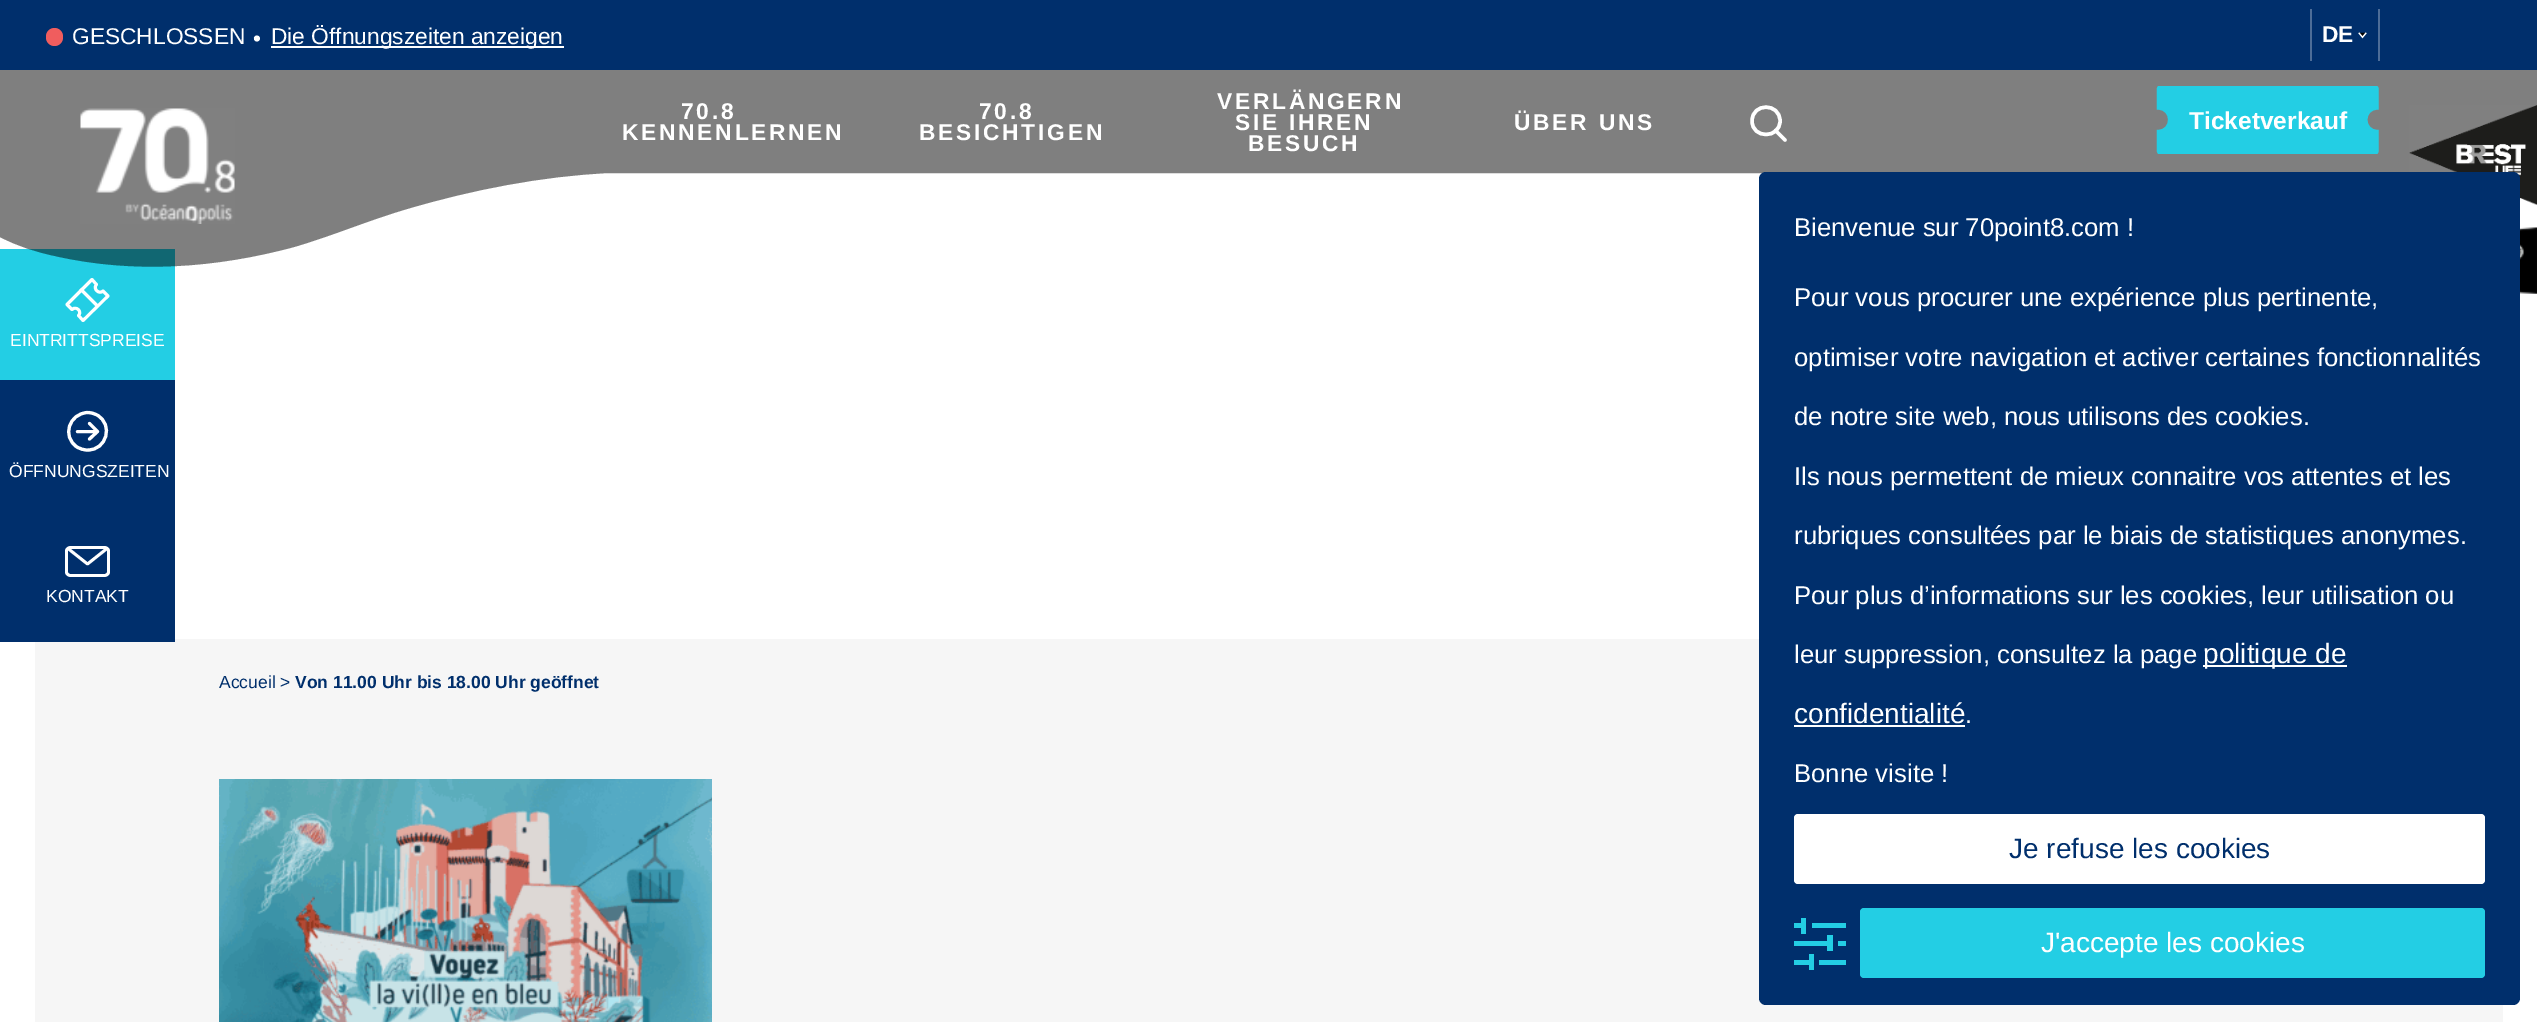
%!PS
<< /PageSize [2537 1022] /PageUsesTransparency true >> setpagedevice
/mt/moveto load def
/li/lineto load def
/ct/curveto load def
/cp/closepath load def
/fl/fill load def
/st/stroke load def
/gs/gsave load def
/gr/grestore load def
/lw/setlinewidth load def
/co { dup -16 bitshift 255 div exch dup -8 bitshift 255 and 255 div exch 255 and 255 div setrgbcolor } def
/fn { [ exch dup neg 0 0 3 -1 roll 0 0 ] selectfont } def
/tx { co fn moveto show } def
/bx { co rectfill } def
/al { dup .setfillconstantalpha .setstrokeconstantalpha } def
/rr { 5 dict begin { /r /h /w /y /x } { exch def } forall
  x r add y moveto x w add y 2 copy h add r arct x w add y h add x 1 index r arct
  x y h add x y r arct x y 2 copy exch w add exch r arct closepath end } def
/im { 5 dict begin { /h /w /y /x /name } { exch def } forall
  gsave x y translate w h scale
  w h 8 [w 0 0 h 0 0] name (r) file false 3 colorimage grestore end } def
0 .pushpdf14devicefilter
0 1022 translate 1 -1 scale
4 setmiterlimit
0 0 2537 1022 16#FFFFFF bx
0 0 2537 70 16#002F6C bx
16#F05D5E co
46 28 17 18 8.5 rr fl
271 46 293 2 16#FFFFFF bx
2310 9 2 52 16#4D6D98 bx
2378 9 2 52 16#4D6D98 bx
(media/1.raw) 2358 32 9 7 im
0 249 175 131 16#23CEE4 bx
0.5 al
16#000000 co
841 70 mt 0 70 li 0 237 li 17 246 36 252 55 256 ct 134 274 216 268 294 247 ct 332 236 369 220 407 209 ct 471 190 542 176 609 173 ct 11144 175 li 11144 70 li cp fl
1 al
(media/2.raw) 80 108 155 116 im
16#FFFFFF co
3.5 lw
1 setlinejoin
1780 121 mt 1780 139 1752 139 1752 121 ct 1752 102.5 1780 102.5 1780 121 ct cp st
1 setlinecap
1775.5 130.5 mt 1785 140 li st
16#23CEE4 co
2158 131 mt 2173 131 2173 108 2158 108 ct 2158 89 li 2158 87 2159 86 2161 86 ct 2171 86 li 2171 154 li 2161 154 li 2159 154 2158 152 2158 151 ct cp eofill
2172 86 192 68 16#23CEE4 bx
gs
2147 86 35 68 rectclip
2.3 lw
0 setlinecap
0 setlinejoin
2158 131 mt 2173 131 2173 108.5 2158 108.5 ct 2158 89 li 2158 87.5 2159.5 86 2161 86 ct 2171 86 li 2171 154 li 2161 154 li 2159.5 154 2158 152.5 2158 150.5 ct cp st
gr
2377 108 mt 2362 108 2362 131 2377 131 ct 2377 151 li 2377 152 2376 154 2374 154 ct 2364 154 li 2364 86 li 2374 86 li 2376 86 2377 87 2377 89 ct cp eofill
gs
2354 86 35 68 rectclip
2.3 lw
0 setlinecap
0 setlinejoin
2377.5 108.5 mt 2362.5 108.5 2362.5 131 2377.5 131 ct 2377.5 150.5 li 2377.5 152.5 2376 154 2374.5 154 ct 2364.5 154 li 2364.5 86 li 2374.5 86 li 2376 86 2377.5 87.5 2377.5 89 ct cp st
gr
16#FFFFFF co
2.9 lw
103 291 mt 99 295 92.5 288.5 96.5 284.5 ct 92 279.5 li 67 304.5 li 72 309.5 li 76 305.5 82.5 311.5 78.5 315.5 ct 83 320.5 li 108 296 li cp st
2 setlinecap
0 setlinejoin
81.5 290 mt 96 304.5 li st
35 639 1724 87 16#F6F6F6 bx
0 380 175 262 16#002F6C bx
16#FFFFFF co
3.1 lw
0 setlinecap
1 setlinejoin
87.5 450 mt 106.5 450.5 114 424.5 97 415 ct 94 413.5 91 412.5 87.5 412.5 ct 69 413.5 61.5 436.5 77 447 ct 80 449 84 450 87.5 450 ct cp st
1 setlinecap
77.5 431.5 mt 97.5 431.5 li 89.5 423.5 mt 97.5 431.5 li 89.5 439 li st
2.8 lw
66.5 551 mt 66.5 549 68.5 547.5 70.5 547.5 ct 104.5 547.5 li 106.5 547.5 108.5 549 108.5 551 ct 108.5 572 li 108.5 574 106.5 575.5 104.5 575.5 ct 70.5 575.5 li 68.5 575.5 66.5 574 66.5 572 ct cp 107 548.5 mt 87.5 564 li 68 548.5 li st
35 726 2468 296 16#F6F6F6 bx
(media/3.raw) 219 779 493 243 im
(media/4.raw) 2409 105 128 100 im
16#002F6C co
1759 172 761 833 7 rr fl
2203 665 144 2 16#FFFFFF bx
1794 725 171 2 16#FFFFFF bx
1794 814 691 70 4 rr fl
1812 923 34 5 16#23CEE4 bx
1794 923 12 5 16#23CEE4 bx
1801 918 5 16 16#23CEE4 bx
1838 941 8 5 16#23CEE4 bx
1794 941 34 5 16#23CEE4 bx
1827 935 6 16 16#23CEE4 bx
1819 960 27 5 16#23CEE4 bx
1794 960 16 5 16#23CEE4 bx
1809 954 5 16 16#23CEE4 bx
1860 908 625 70 4 rr fl
(media/5.raw) 2520 227 17 67 im
(GESCHLOSSEN) 72 44 /LiberationSans-Regular 22.75 16#FFFFFF tx
(•) 253 46 /LiberationSans-Regular 22.75 16#FFFFFF tx
(Die Öffnungszeiten anzeigen) 271 44 /LiberationSans-Regular 22.75 16#FFFFFF tx
(DE) 2322 42 /LiberationSans-Bold 22.75 16#FFFFFF tx
681 119 mt 2.75 0 (70.8) ashow
622 140 mt 2.75 0 (KENNENLERNEN) ashow
979 119 mt 2.75 0 (70.8) ashow
919 140 mt 2.75 0 (BESICHTIGEN) ashow
1217 109 mt 2.75 0 (VERLÄNGERN) ashow
1235 130 mt 2.75 0 (SIE IHREN) ashow
1248 151 mt 2.75 0 (BESUCH) ashow
1514 130 mt 2.75 0 (ÜBER UNS) ashow
(Ticketverkauf) 2189 129 /LiberationSans-Bold 24.5 16#FFFFFF tx
(EINTRITTSPREISE) 10 346 /LiberationSans-Regular 17.5 16#FFFFFF tx
(ÖFFNUNGSZEITEN) 9 477 /LiberationSans-Regular 17.5 16#FFFFFF tx
(KONTAKT) 46 602 /LiberationSans-Regular 17.5 16#FFFFFF tx
(Accueil) 219 688 /LiberationSans-Regular 17.5 16#002F6C tx
(>) 280 688 /LiberationSans-Regular 17.5 16#002F6C tx
(Von 11.00 Uhr bis 18.00 Uhr geöffnet) 295 688 /LiberationSans-Bold 17.5 16#002F6C tx
(Bienvenue sur 70point8.com !) 1794 236 /LiberationSans-Regular 25.7 16#FFFFFF tx
(Pour vous procurer une expérience plus pertinente,) 1794 306 /LiberationSans-Regular 25.7 16#FFFFFF tx
(optimiser votre navigation et activer certaines fonctionnalités) 1794 366 /LiberationSans-Regular 25.7 16#FFFFFF tx
(de notre site web, nous utilisons des cookies.) 1794 425 /LiberationSans-Regular 25.7 16#FFFFFF tx
(Ils nous permettent de mieux connaitre vos attentes et les) 1794 485 /LiberationSans-Regular 25.7 16#FFFFFF tx
(rubriques consultées par le biais de statistiques anonymes.) 1794 544 /LiberationSans-Regular 25.7 16#FFFFFF tx
(Pour plus d’informations sur les cookies, leur utilisation ou) 1794 604 /LiberationSans-Regular 25.7 16#FFFFFF tx
(leur suppression, consultez la page) 1794 663 /LiberationSans-Regular 25.7 16#FFFFFF tx
(politique de) 2203 663 /LiberationSans-Regular 28 16#FFFFFF tx
(confidentialité) 1794 723 /LiberationSans-Regular 28 16#FFFFFF tx
(.) 1965 723 /LiberationSans-Regular 25.7 16#FFFFFF tx
(Bonne visite !) 1794 782 /LiberationSans-Regular 25.7 16#FFFFFF tx
(Je refuse les cookies) 2009 858 /LiberationSans-Regular 28 16#002F6C tx
(J'accepte les cookies) 2041 952 /LiberationSans-Regular 28 16#FFFFFF tx
.poppdf14devicefilter showpage
